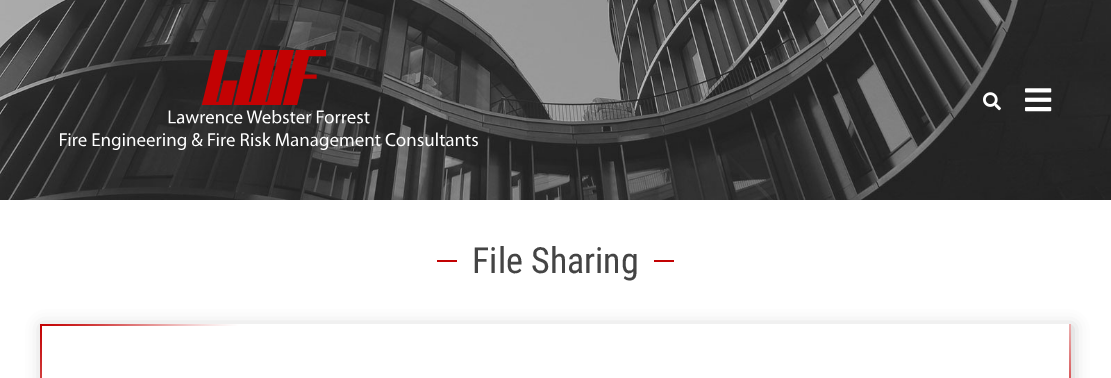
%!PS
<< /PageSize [1111 378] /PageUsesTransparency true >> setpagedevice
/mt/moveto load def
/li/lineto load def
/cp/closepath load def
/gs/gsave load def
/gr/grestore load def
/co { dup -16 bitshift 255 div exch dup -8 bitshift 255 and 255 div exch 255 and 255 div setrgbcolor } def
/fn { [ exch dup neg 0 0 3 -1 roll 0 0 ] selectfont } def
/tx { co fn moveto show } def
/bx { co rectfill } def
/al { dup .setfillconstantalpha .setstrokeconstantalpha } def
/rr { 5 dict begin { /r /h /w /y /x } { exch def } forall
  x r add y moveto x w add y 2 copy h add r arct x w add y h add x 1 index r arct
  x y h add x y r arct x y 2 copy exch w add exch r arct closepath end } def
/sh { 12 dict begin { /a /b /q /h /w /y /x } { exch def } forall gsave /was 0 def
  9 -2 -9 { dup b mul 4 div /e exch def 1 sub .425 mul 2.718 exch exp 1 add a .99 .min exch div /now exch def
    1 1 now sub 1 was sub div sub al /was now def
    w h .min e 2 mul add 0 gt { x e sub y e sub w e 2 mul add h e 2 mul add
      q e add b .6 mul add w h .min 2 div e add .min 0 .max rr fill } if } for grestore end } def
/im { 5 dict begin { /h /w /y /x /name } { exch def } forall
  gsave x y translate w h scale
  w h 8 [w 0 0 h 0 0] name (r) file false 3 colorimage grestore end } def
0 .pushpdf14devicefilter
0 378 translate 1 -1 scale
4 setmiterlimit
0 0 1111 378 16#FFFFFF bx
(media/1.raw) 0 0 1111 200 im
(media/2.raw) 60 50 418 100 im
(media/3.raw) 983 92 18 19 im
(media/4.raw) 1025 88 27 24 im
437 260 20 2 16#C30203 bx
654 260 20 2 16#C30203 bx
gs
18 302 mt 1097 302 li 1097 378 li 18 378 li cp 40 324 mt 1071 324 li 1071 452 li 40 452 li cp eoclip newpath
16#CCCCCC co
42 326 1031 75 0 7.5 1 sh
gr
(media/5.raw) 40 324 1031 54 im
(File Sharing) 472 273 /RobotoCondensed-Regular 36 16#444444 tx
.poppdf14devicefilter showpage
